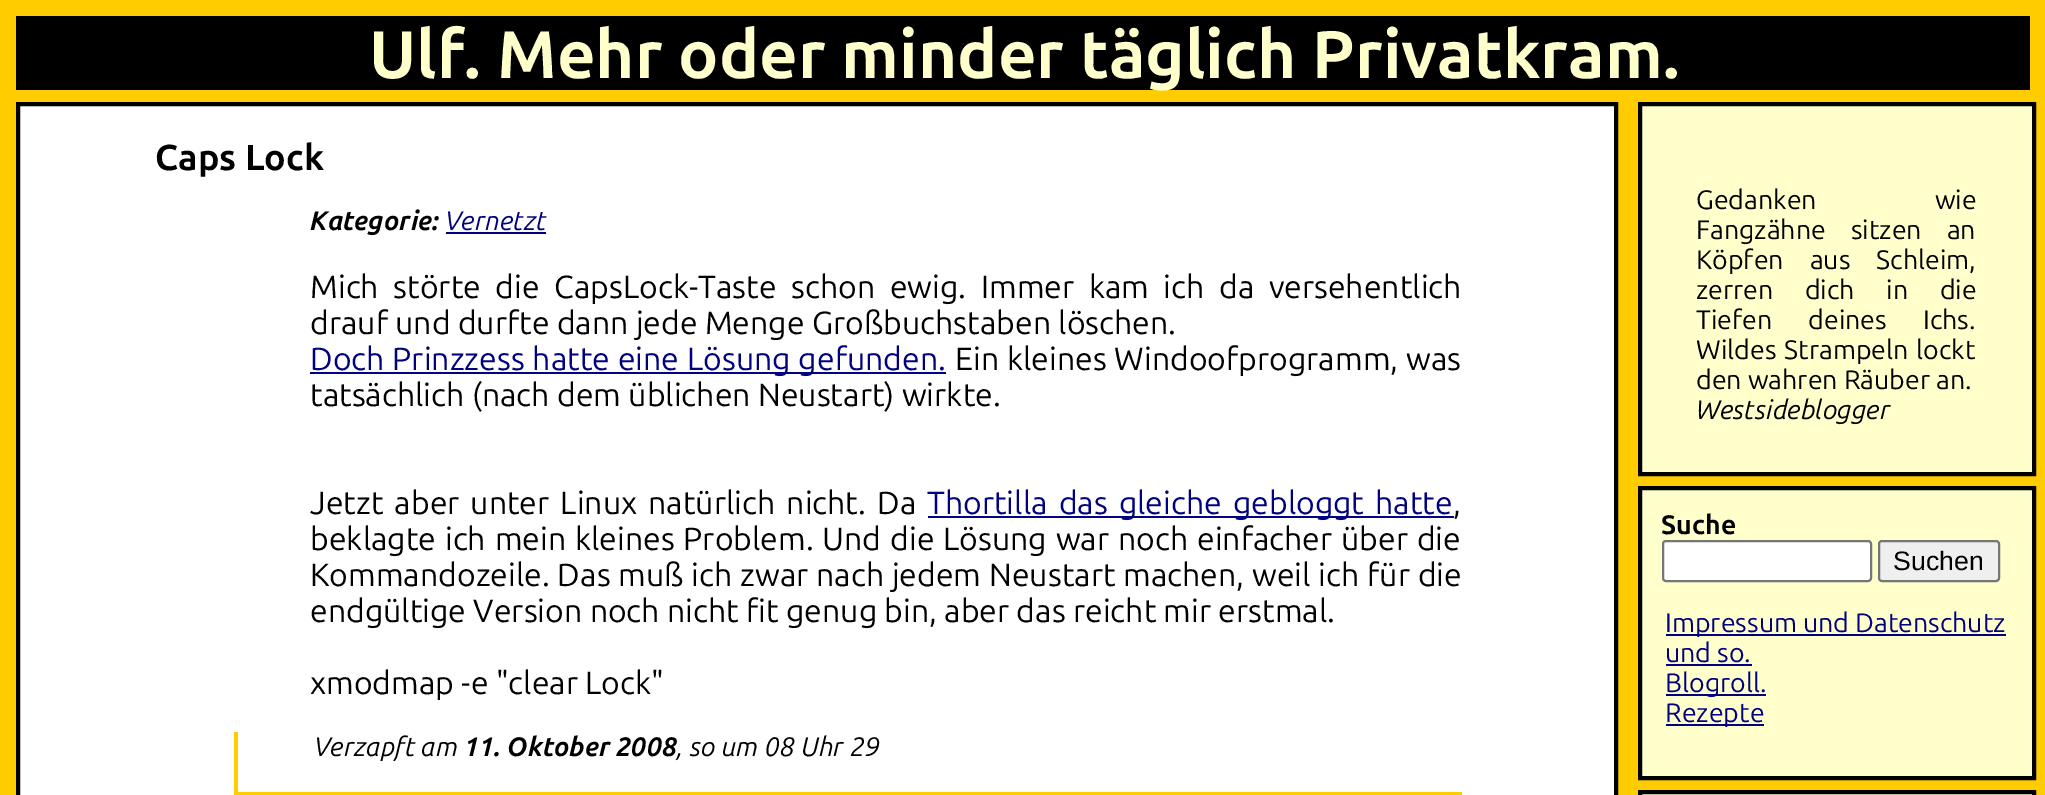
%!PS
<< /PageSize [2045 795] >> setpagedevice
/mt/moveto load def
/li/lineto load def
/cp/closepath load def
/fl/fill load def
/st/stroke load def
/gs/gsave load def
/gr/grestore load def
/lw/setlinewidth load def
/co { dup -16 bitshift 255 div exch dup -8 bitshift 255 and 255 div exch 255 and 255 div setrgbcolor } def
/fn { [ exch dup neg 0 0 3 -1 roll 0 0 ] selectfont } def
/tx { co fn moveto show } def
/bx { co rectfill } def
/rr { 5 dict begin { /r /h /w /y /x } { exch def } forall
  x r add y moveto x w add y 2 copy h add r arct x w add y h add x 1 index r arct
  x y h add x y r arct x y 2 copy exch w add exch r arct closepath end } def
0 795 translate 1 -1 scale
4 setmiterlimit
0 0 2045 795 16#FFCC00 bx
16 16 2014 74 16#000000 bx
16#FFFFFF co
18 104 mt 1616 104 li 1616 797 li 18 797 li cp gs fl gr
16#000000 co
4 lw
st
446 232 100 2 16#000080 bx
310 372 636 2 16#000080 bx
928 516 526 2 16#000080 bx
234 792 1228 3 16#FFCC00 bx
234 732 4 63 16#FFCC00 bx
16#FFFFCC co
1640 104 mt 2034 104 li 2034 474 li 1640 474 li cp gs fl gr
16#000000 co
st
16#FFFFCC co
1640 488 mt 2034 488 li 2034 778 li 1640 778 li cp gs fl gr
16#000000 co
st
16#FFFFFF co
1663 541 208 40 3 rr gs fl gr
16#767676 co
2 lw
st
16#EFEFEF co
1879 541 120 40 3 rr gs fl gr
16#767676 co
st
1666 634 340 2 16#000080 bx
1666 664 86 2 16#000080 bx
1666 694 100 2 16#000080 bx
1666 724 98 2 16#000080 bx
16#FFFFCC co
1640 792 mt 2034 792 li 2034 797 li 1640 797 li cp gs fl gr
16#000000 co
4 lw
st
(Ulf. Mehr oder minder täglich Privatkram.) 369 78 /Ubuntu-Bold 67.25 16#FFFFCC tx
(Caps Lock) 155 170 /Ubuntu-Bold 36 16#000000 tx
(Kategorie:) 310 230 /Ubuntu-BoldItalic 26.7 16#000000 tx
(Vernetzt) 445 230 /Ubuntu-Italic 26.7 16#000080 tx
/Ubuntu-Regular 32 fn
16#000000 co
310 298 mt 7.25 0 32 (Mich störte die CapsLock-Taste schon ewig. Immer kam ich da versehentlich) widthshow
(drauf und durfte dann jede Menge Großbuchstaben löschen.) 310 334 /Ubuntu-Regular 32 16#000000 tx
16#000080 co
310 370 mt .5 0 32 (Doch Prinzzess hatte eine Lösung gefunden.) widthshow
16#000000 co
955 370 mt .5 0 32 (Ein kleines Windoofprogramm, was) widthshow
(tatsächlich \(nach dem üblichen Neustart\) wirkte.) 310 406 /Ubuntu-Regular 32 16#000000 tx
310 514 mt 3.75 0 32 (Jetzt aber unter Linux natürlich nicht. Da) widthshow
16#000080 co
927 514 mt 3.75 0 32 (Thortilla das gleiche gebloggt hatte) widthshow
(,) 1453 514 /Ubuntu-Regular 32 16#000000 tx
310 550 mt 1.5 0 32 (beklagte ich mein kleines Problem. Und die Lösung war noch einfacher über die) widthshow
310 586 mt .5 0 32 (Kommandozeile. Das muß ich zwar nach jedem Neustart machen, weil ich für die) widthshow
(endgültige Version noch nicht fit genug bin, aber das reicht mir erstmal.) 310 622 /Ubuntu-Regular 32 16#000000 tx
(xmodmap -e "clear Lock") 310 694 /Ubuntu-Regular 32 16#000000 tx
(Verzapft am) 314 756 /Ubuntu-Italic 26.7 16#000000 tx
(11. Oktober 2008) 464 756 /Ubuntu-BoldItalic 26.7 16#000000 tx
(, so um 08 Uhr 29) 677 756 /Ubuntu-Italic 26.7 16#000000 tx
/Ubuntu-Regular 26.7 fn
1696 209 mt 112 0 32 (Gedanken wie) widthshow
1696 239 mt 19 0 32 (Fangzähne sitzen an) widthshow
1696 269 mt 20 0 32 (Köpfen aus Schleim,) widthshow
1696 299 mt 25.5 0 32 (zerren dich in die) widthshow
1696 329 mt 30 0 32 (Tiefen deines Ichs.) widthshow
1696 359 mt 2 0 32 (Wildes Strampeln lockt) widthshow
(den wahren Räuber an.) 1696 389 /Ubuntu-Regular 26.7 16#000000 tx
(Westsideblogger) 1696 419 /Ubuntu-Italic 26.7 16#000000 tx
(Suche) 1661 534 /Ubuntu-Bold 26.7 16#000000 tx
(Suchen) 1893 570 /LiberationSans-Regular 26.7 16#000000 tx
(Impressum und Datenschutz) 1665 632 /Ubuntu-Regular 26.7 16#000080 tx
(und so.) 1665 662 /Ubuntu-Regular 26.7 16#000080 tx
(Blogroll.) 1665 692 /Ubuntu-Regular 26.7 16#000080 tx
(Rezepte) 1665 722 /Ubuntu-Regular 26.7 16#000080 tx
showpage
